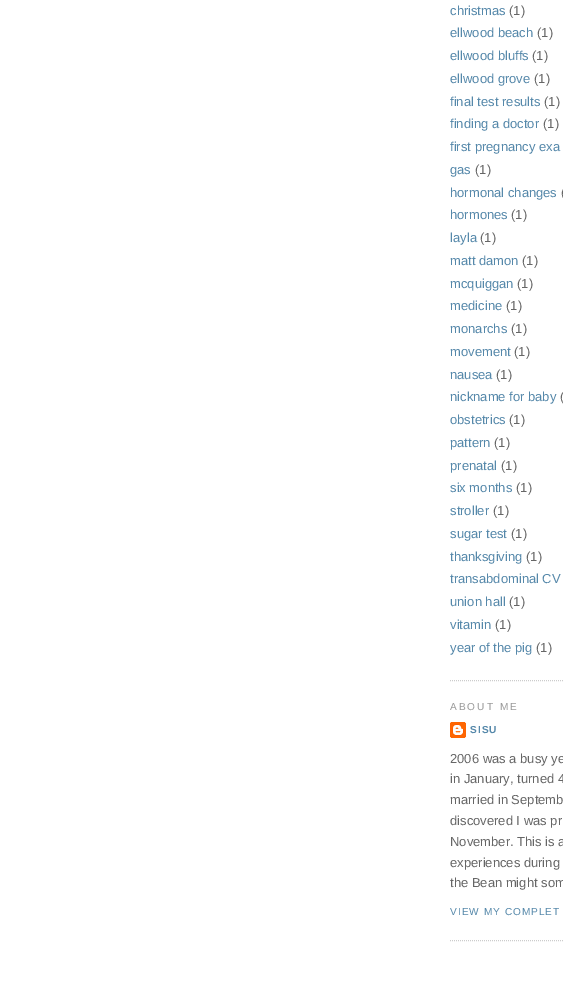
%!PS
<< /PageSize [563 1000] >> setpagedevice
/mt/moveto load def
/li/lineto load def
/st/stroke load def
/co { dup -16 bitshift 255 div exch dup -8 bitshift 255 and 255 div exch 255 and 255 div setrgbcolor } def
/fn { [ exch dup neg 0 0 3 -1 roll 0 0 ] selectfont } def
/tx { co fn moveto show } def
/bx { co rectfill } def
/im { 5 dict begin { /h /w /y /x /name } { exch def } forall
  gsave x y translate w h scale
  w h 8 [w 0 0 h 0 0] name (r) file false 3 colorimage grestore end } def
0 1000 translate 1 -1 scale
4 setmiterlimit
0 0 563 1000 16#FFFFFF bx
16#CCCCCC co
[1 1] 0 setdash
450 680.5 mt 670 680.5 li st
450 940.5 mt 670 940.5 li st
(media/1.raw) 450 722 16 16 im
(christmas) 450 15 /LiberationSans-Regular 13 16#5588AA tx
(\(1\)) 509 15 /LiberationSans-Regular 13 16#666666 tx
(ellwood beach) 450 37 /LiberationSans-Regular 13 16#5588AA tx
(\(1\)) 537 37 /LiberationSans-Regular 13 16#666666 tx
(ellwood bluffs) 450 60 /LiberationSans-Regular 13 16#5588AA tx
(\(1\)) 532 60 /LiberationSans-Regular 13 16#666666 tx
(ellwood grove) 450 83 /LiberationSans-Regular 13 16#5588AA tx
(\(1\)) 534 83 /LiberationSans-Regular 13 16#666666 tx
(final test results) 450 106 /LiberationSans-Regular 13 16#5588AA tx
(\(1\)) 544 106 /LiberationSans-Regular 13 16#666666 tx
(finding a doctor) 450 128 /LiberationSans-Regular 13 16#5588AA tx
(\(1\)) 543 128 /LiberationSans-Regular 13 16#666666 tx
(first pregnancy exa) 450 151 /LiberationSans-Regular 13 16#5588AA tx
(gas) 450 174 /LiberationSans-Regular 13 16#5588AA tx
(\(1\)) 475 174 /LiberationSans-Regular 13 16#666666 tx
(hormonal changes) 450 197 /LiberationSans-Regular 13 16#5588AA tx
(\() 561 197 /LiberationSans-Regular 13 16#666666 tx
(hormones) 450 219 /LiberationSans-Regular 13 16#5588AA tx
(\(1\)) 511 219 /LiberationSans-Regular 13 16#666666 tx
(layla) 450 242 /LiberationSans-Regular 13 16#5588AA tx
(\(1\)) 480 242 /LiberationSans-Regular 13 16#666666 tx
(matt damon) 450 265 /LiberationSans-Regular 13 16#5588AA tx
(\(1\)) 522 265 /LiberationSans-Regular 13 16#666666 tx
(mcquiggan) 450 288 /LiberationSans-Regular 13 16#5588AA tx
(\(1\)) 517 288 /LiberationSans-Regular 13 16#666666 tx
(medicine) 450 310 /LiberationSans-Regular 13 16#5588AA tx
(\(1\)) 506 310 /LiberationSans-Regular 13 16#666666 tx
(monarchs) 450 333 /LiberationSans-Regular 13 16#5588AA tx
(\(1\)) 511 333 /LiberationSans-Regular 13 16#666666 tx
(movement) 450 356 /LiberationSans-Regular 13 16#5588AA tx
(\(1\)) 514 356 /LiberationSans-Regular 13 16#666666 tx
(nausea) 450 379 /LiberationSans-Regular 13 16#5588AA tx
(\(1\)) 496 379 /LiberationSans-Regular 13 16#666666 tx
(nickname for baby) 450 401 /LiberationSans-Regular 13 16#5588AA tx
(\() 560 401 /LiberationSans-Regular 13 16#666666 tx
(obstetrics) 450 424 /LiberationSans-Regular 13 16#5588AA tx
(\(1\)) 509 424 /LiberationSans-Regular 13 16#666666 tx
(pattern) 450 447 /LiberationSans-Regular 13 16#5588AA tx
(\(1\)) 494 447 /LiberationSans-Regular 13 16#666666 tx
(prenatal) 450 470 /LiberationSans-Regular 13 16#5588AA tx
(\(1\)) 501 470 /LiberationSans-Regular 13 16#666666 tx
(six months) 450 492 /LiberationSans-Regular 13 16#5588AA tx
(\(1\)) 516 492 /LiberationSans-Regular 13 16#666666 tx
(stroller) 450 515 /LiberationSans-Regular 13 16#5588AA tx
(\(1\)) 493 515 /LiberationSans-Regular 13 16#666666 tx
(sugar test) 450 538 /LiberationSans-Regular 13 16#5588AA tx
(\(1\)) 511 538 /LiberationSans-Regular 13 16#666666 tx
(thanksgiving) 450 561 /LiberationSans-Regular 13 16#5588AA tx
(\(1\)) 526 561 /LiberationSans-Regular 13 16#666666 tx
(transabdominal CV) 450 583 /LiberationSans-Regular 13 16#5588AA tx
(union hall) 450 606 /LiberationSans-Regular 13 16#5588AA tx
(\(1\)) 509 606 /LiberationSans-Regular 13 16#666666 tx
(vitamin) 450 629 /LiberationSans-Regular 13 16#5588AA tx
(\(1\)) 495 629 /LiberationSans-Regular 13 16#666666 tx
(year of the pig) 450 652 /LiberationSans-Regular 13 16#5588AA tx
(\(1\)) 536 652 /LiberationSans-Regular 13 16#666666 tx
/LiberationSans-Regular 10.1 fn
16#999999 co
450 710 mt 2 0 (ABOUT ME) ashow
/LiberationSans-Bold 10.1 fn
16#5588AA co
470 733 mt 1 0 (SISU) ashow
(2006 was a busy ye) 450 763 /LiberationSans-Regular 13 16#666666 tx
(in January, turned 4) 450 783 /LiberationSans-Regular 13 16#666666 tx
(married in Septemb) 450 804 /LiberationSans-Regular 13 16#666666 tx
(discovered I was pr) 450 825 /LiberationSans-Regular 13 16#666666 tx
(November. This is a) 450 846 /LiberationSans-Regular 13 16#666666 tx
(experiences during) 450 867 /LiberationSans-Regular 13 16#666666 tx
(the Bean might som) 450 887 /LiberationSans-Regular 13 16#666666 tx
/LiberationSans-Regular 10.1 fn
16#5588AA co
450 915 mt 1 0 (VIEW MY COMPLET) ashow
showpage
